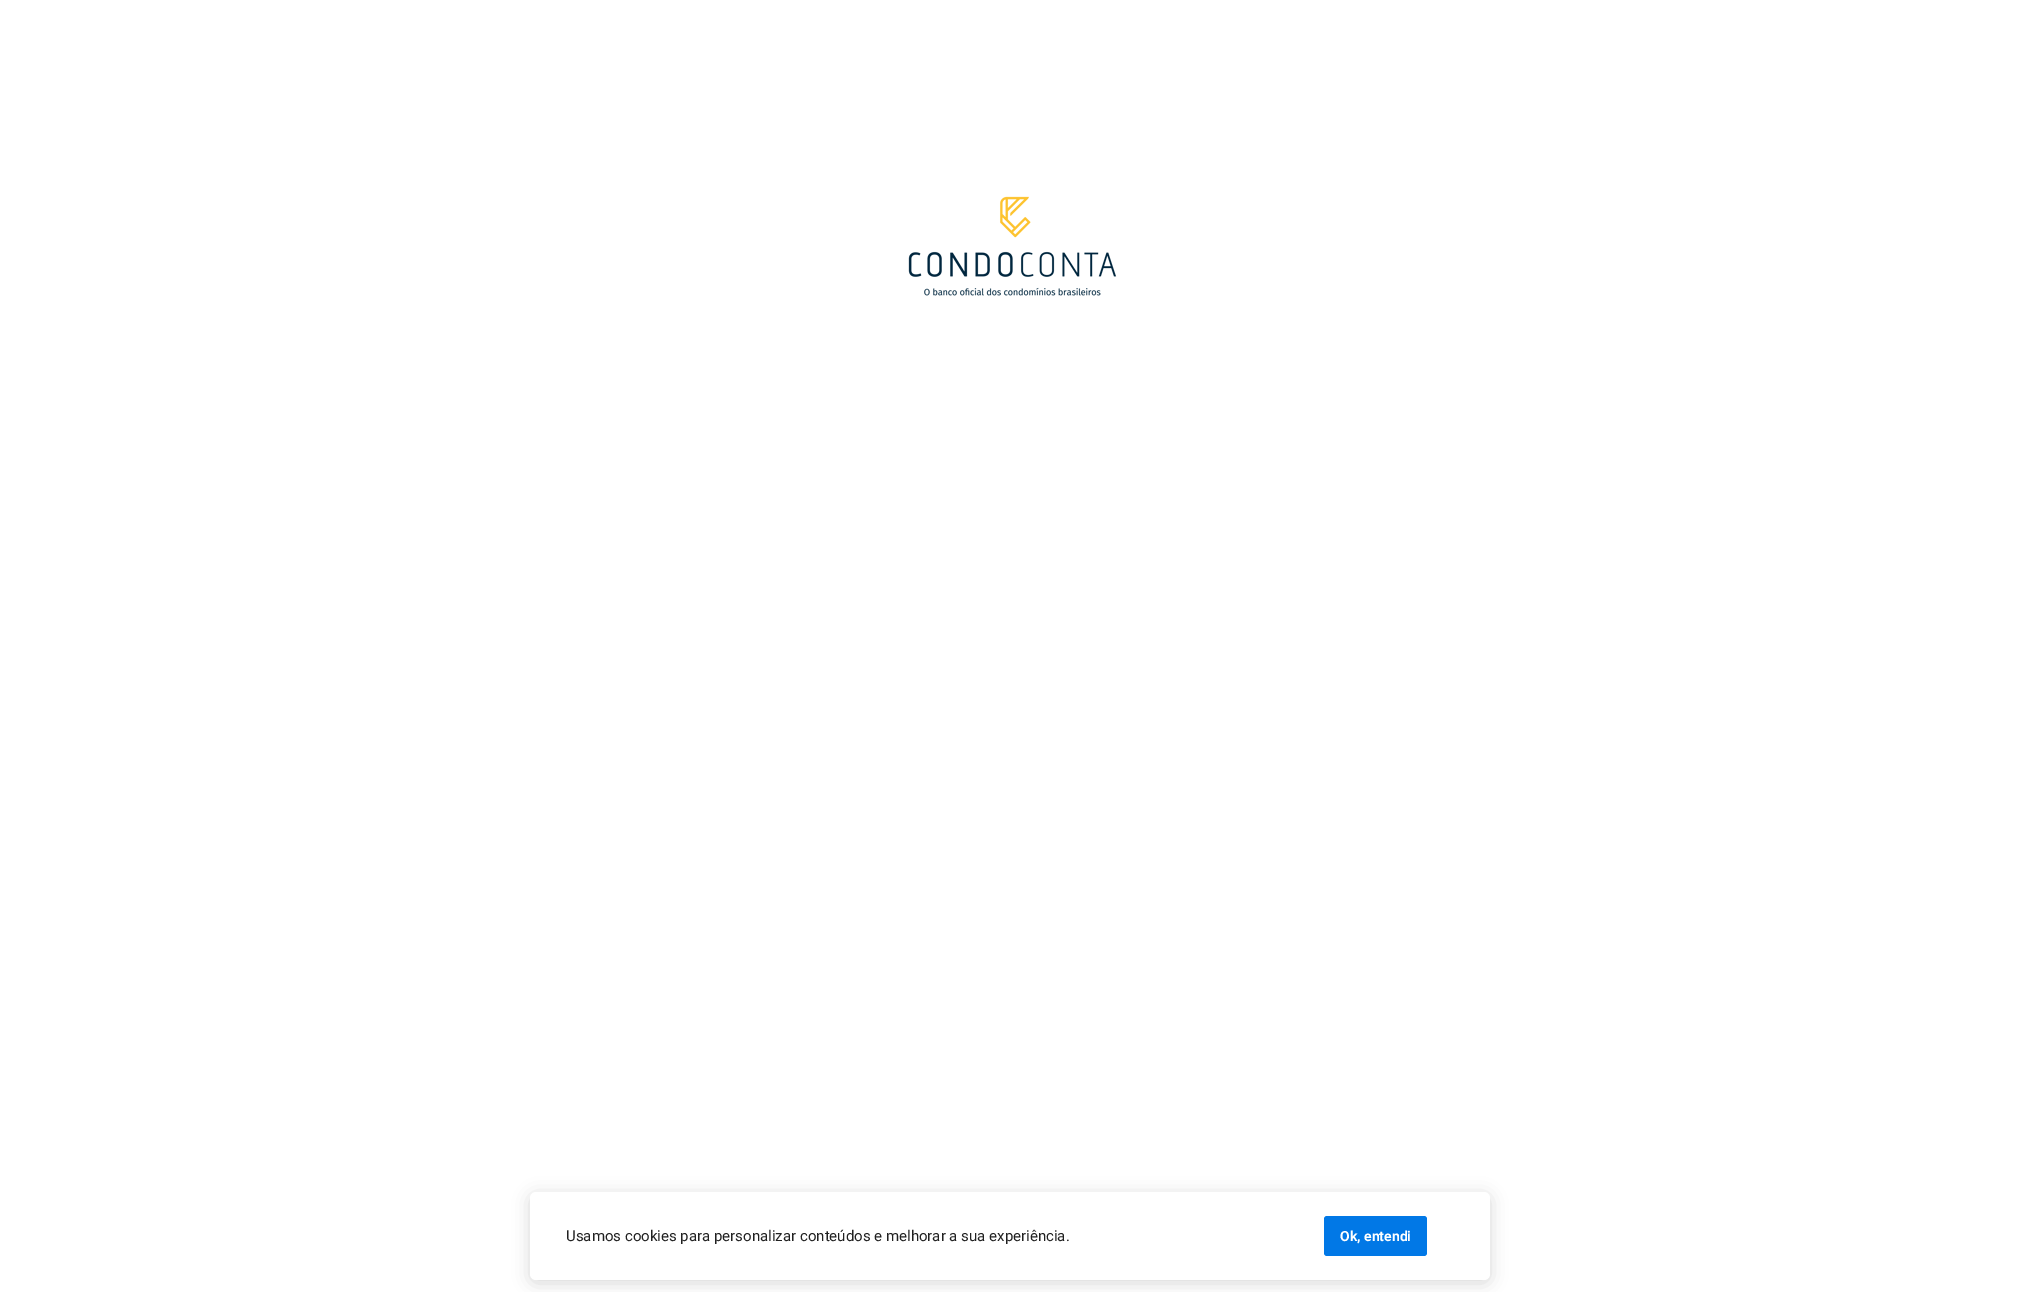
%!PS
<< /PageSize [2019 1292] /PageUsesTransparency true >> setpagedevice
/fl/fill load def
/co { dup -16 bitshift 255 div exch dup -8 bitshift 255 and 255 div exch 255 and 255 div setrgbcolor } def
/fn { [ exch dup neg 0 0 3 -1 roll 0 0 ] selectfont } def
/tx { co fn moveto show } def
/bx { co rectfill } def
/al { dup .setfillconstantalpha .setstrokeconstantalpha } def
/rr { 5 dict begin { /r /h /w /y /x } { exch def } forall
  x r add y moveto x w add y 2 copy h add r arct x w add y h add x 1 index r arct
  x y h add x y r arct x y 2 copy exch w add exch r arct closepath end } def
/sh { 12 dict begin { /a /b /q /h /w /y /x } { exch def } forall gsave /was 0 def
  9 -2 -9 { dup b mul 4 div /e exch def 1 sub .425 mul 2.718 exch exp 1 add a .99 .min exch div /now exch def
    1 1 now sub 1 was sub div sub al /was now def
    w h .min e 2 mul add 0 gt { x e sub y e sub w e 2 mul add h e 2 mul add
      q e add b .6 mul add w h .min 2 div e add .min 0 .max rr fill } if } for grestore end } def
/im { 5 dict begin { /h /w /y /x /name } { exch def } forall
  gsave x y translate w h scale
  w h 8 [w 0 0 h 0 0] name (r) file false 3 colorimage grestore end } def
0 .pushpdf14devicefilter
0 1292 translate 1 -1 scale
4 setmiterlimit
0 0 2019 1292 16#FFFFFF bx
(media/1.raw) 908 196 209 100 im
16#000000 co
530 1195 960 88 6 8.5 .15 sh
16#FFFFFF co
530 1192 960 88 6 rr fl
16#0178E6 co
1324 1216 103 40 3 rr fl
(Usamos cookies para personalizar conteúdos e melhorar a sua experiência.) 566 1241 /Roboto-Regular 15 16#212121 tx
(Ok, entendi) 1340 1241 /Roboto-Bold 14 16#FFFFFF tx
.poppdf14devicefilter showpage
